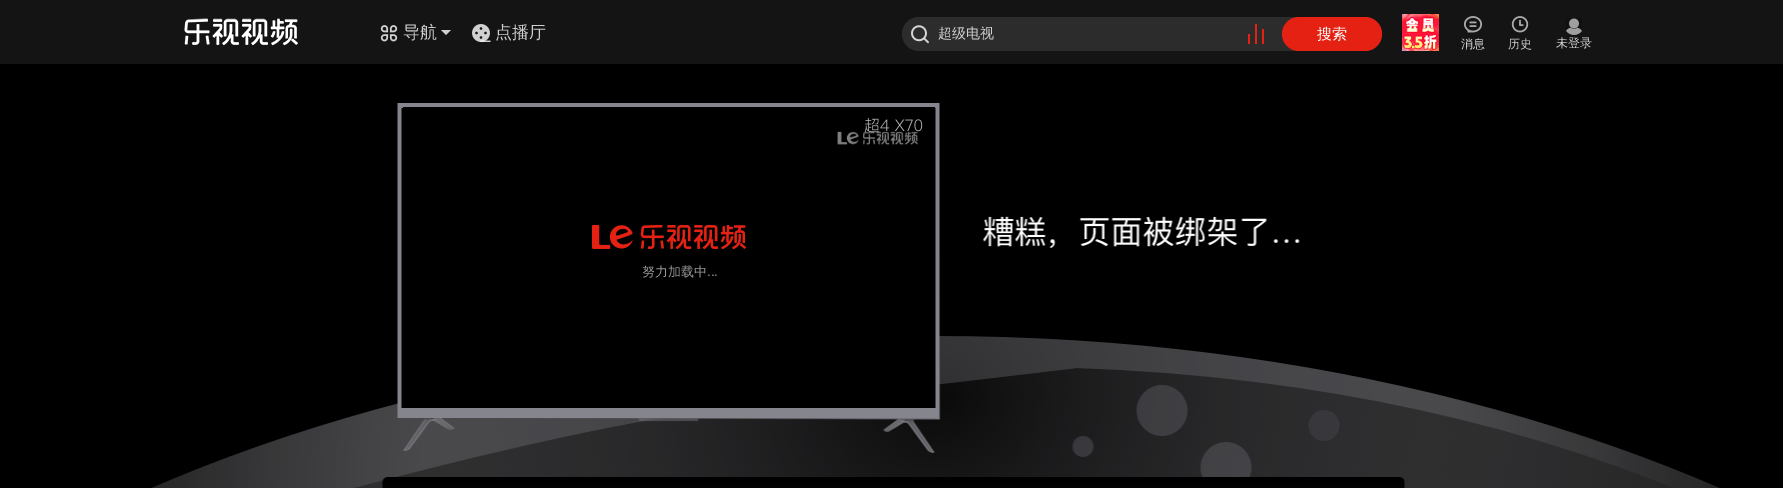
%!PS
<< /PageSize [1783 488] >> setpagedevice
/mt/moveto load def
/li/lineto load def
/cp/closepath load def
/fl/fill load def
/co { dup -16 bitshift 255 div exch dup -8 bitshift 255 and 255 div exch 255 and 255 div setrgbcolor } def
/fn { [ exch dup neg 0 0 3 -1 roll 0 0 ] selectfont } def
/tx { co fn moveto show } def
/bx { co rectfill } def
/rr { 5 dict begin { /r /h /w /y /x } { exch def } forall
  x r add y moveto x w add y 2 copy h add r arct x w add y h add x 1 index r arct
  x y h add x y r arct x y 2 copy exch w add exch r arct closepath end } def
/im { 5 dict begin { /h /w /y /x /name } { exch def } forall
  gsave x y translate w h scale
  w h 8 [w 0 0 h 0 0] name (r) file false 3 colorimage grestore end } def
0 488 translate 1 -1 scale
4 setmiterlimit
0 0 1783 488 16#141414 bx
(media/1.raw) 184 18 114 28 im
(media/2.raw) 380 25 18 17 im
16#D0D0D0 co
441 30 mt 451 30 li 446 35 li cp fl
(media/3.raw) 472 24 19 18 im
16#2C2C2C co
902 17 480 34 17 rr fl
(media/4.raw) 911 25 18 19 im
1248 34 2 10 16#E42112 bx
1255 24 2 20 16#E42112 bx
1262 29 2 15 16#E42112 bx
1282 17 100 34 17 rr fl
(media/5.raw) 1402 14 37 37 im
(media/6.raw) 1463 16 20 17 im
(media/7.raw) 1511 16 18 17 im
(media/8.raw) 1566 18 16 17 im
(media/9.raw) 0 64 1783 424 im
(media/11.raw) 837 131 82 14 im
(media/10.raw) 864 117 59 21 im
403 107 532 1 16#000000 bx
(media/12.raw) 592 225 154 25 im
(导航) 403 38 /WenQuanYiZenHei-Medium 17 16#D0D0D0 tx
(点播厅) 495 38 /WenQuanYiZenHei-Medium 17 16#D0D0D0 tx
(超级电视) 938 38 /WenQuanYiZenHei-Medium 14 16#D0D0D0 tx
(搜索) 1317 39 /WenQuanYiZenHei-Medium 15 16#FFFFFF tx
(消息) 1461 48 /WenQuanYiZenHei-Medium 12 16#D0D0D0 tx
(历史) 1508 48 /WenQuanYiZenHei-Medium 12 16#D0D0D0 tx
(未登录) 1556 47 /WenQuanYiZenHei-Medium 12 16#D0D0D0 tx
(努力加载中) 642 276 /WenQuanYiZenHei-Medium 13 16#999999 tx
(...) 707 276 /LiberationSans-Regular 13 16#999999 tx
showpage
